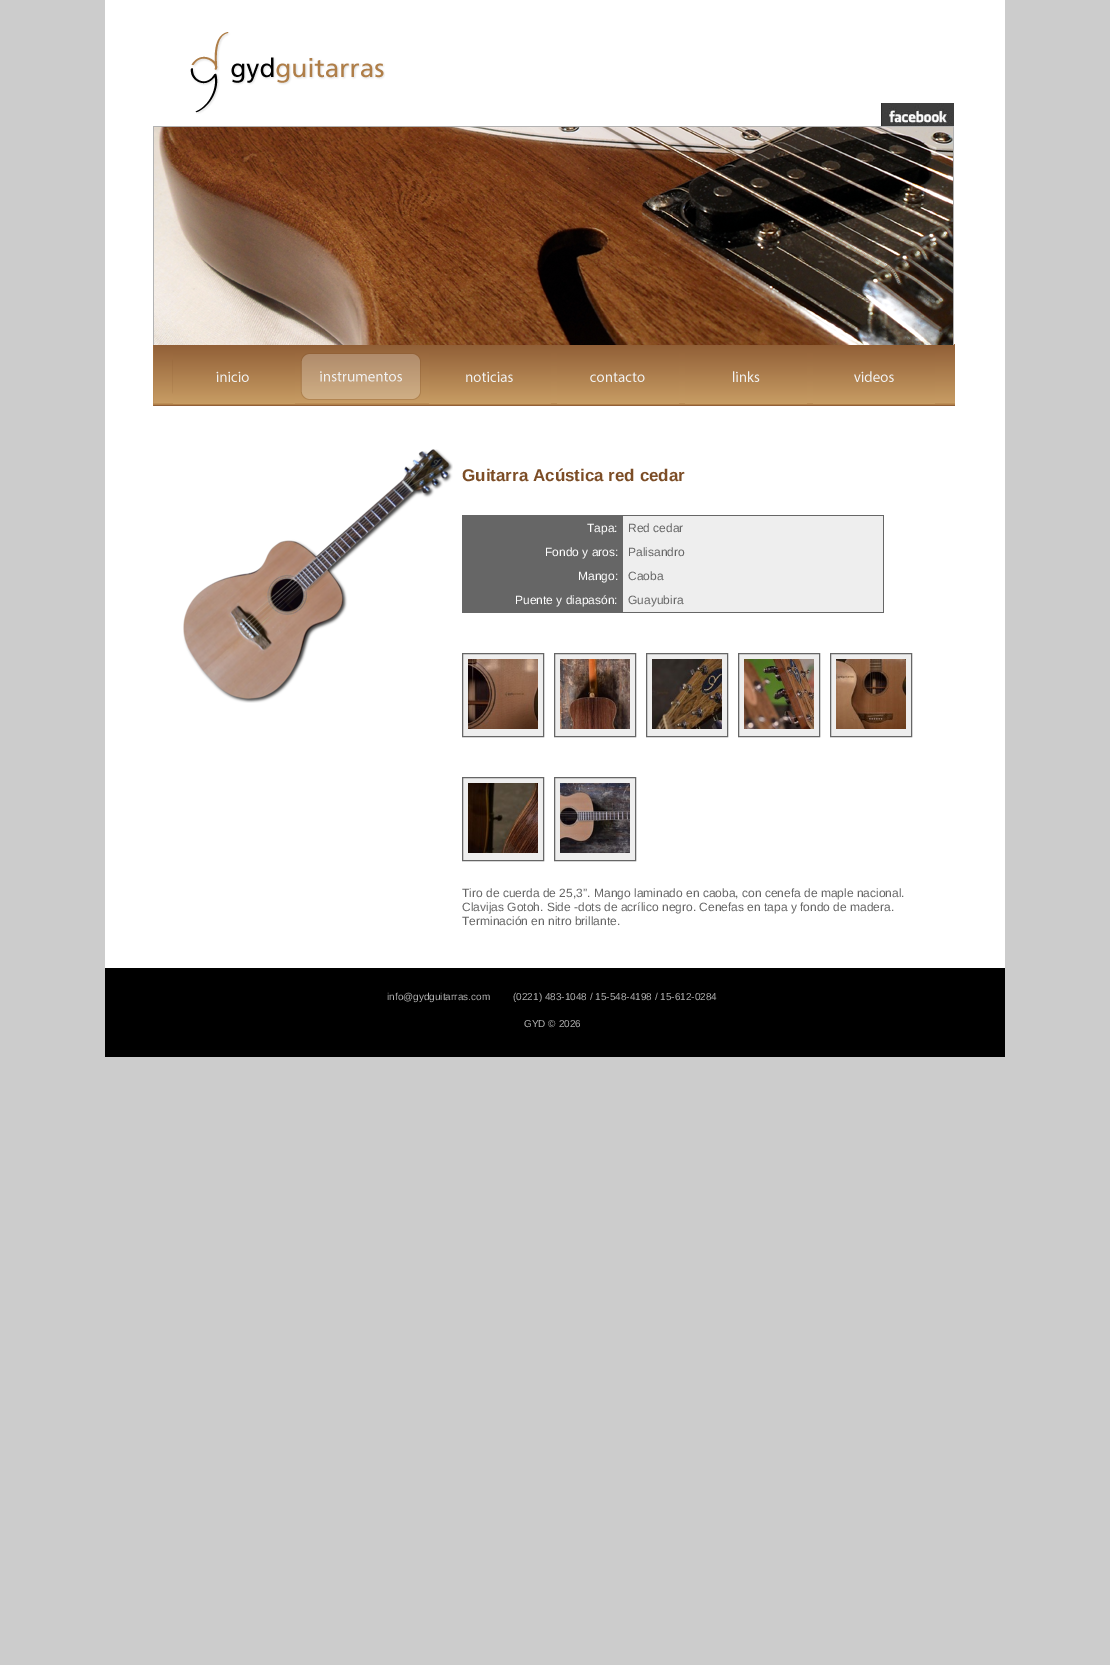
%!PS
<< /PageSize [1110 1665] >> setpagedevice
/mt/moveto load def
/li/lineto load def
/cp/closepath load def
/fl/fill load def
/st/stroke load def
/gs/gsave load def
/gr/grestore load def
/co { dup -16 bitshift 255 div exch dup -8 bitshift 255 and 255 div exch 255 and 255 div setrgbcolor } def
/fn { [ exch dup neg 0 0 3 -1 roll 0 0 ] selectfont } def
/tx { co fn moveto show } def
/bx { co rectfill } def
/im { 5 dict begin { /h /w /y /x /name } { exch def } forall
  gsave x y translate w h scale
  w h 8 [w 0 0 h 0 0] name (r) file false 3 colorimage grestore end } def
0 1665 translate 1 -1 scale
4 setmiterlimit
0 0 1110 1665 16#CCCCCC bx
105 0 900 968 16#FFFFFF bx
(media/1.raw) 190 32 195 82 im
(media/2.raw) 881 103 73 23 im
153 126 801 1 16#B2B2B2 bx
(media/4.raw) 153 344 802 62 im
953 126 1 219 16#B2B2B2 bx
153 126 1 219 16#B2B2B2 bx
(media/3.raw) 154 127 799 218 im
(media/5.raw) 173 353 122 51 im
(media/6.raw) 429 353 122 51 im
(media/7.raw) 557 353 122 51 im
(media/8.raw) 685 353 122 51 im
(media/9.raw) 813 353 122 51 im
(media/10.raw) 183 449 270 254 im
462 515 422 98 16#666666 bx
623 516 260 96 16#EEEEEE bx
462.5 653.5 mt 543.5 653.5 li 543.5 736.5 li 462.5 736.5 li cp gs fl gr
16#666666 co
st
(media/11.raw) 468 659 70 70 im
16#EEEEEE co
554.5 653.5 mt 635.5 653.5 li 635.5 736.5 li 554.5 736.5 li cp gs fl gr
16#666666 co
st
(media/12.raw) 560 659 70 70 im
16#EEEEEE co
646.5 653.5 mt 727.5 653.5 li 727.5 736.5 li 646.5 736.5 li cp gs fl gr
16#666666 co
st
(media/13.raw) 652 659 70 70 im
16#EEEEEE co
738.5 653.5 mt 819.5 653.5 li 819.5 736.5 li 738.5 736.5 li cp gs fl gr
16#666666 co
st
(media/14.raw) 744 659 70 70 im
16#EEEEEE co
830.5 653.5 mt 911.5 653.5 li 911.5 736.5 li 830.5 736.5 li cp gs fl gr
16#666666 co
st
(media/15.raw) 836 659 70 70 im
16#EEEEEE co
462.5 777.5 mt 543.5 777.5 li 543.5 860.5 li 462.5 860.5 li cp gs fl gr
16#666666 co
st
(media/16.raw) 468 783 70 70 im
16#EEEEEE co
554.5 777.5 mt 635.5 777.5 li 635.5 860.5 li 554.5 860.5 li cp gs fl gr
16#666666 co
st
(media/17.raw) 560 783 70 70 im
105 968 900 89 16#000000 bx
(Guitarra Acústica red cedar) 462 481 /LiberationSans-Bold 17 16#7C4D26 tx
(Tapa:) 587 532 /LiberationSans-Regular 12 16#FFFFFF tx
(Red cedar) 628 532 /LiberationSans-Regular 12 16#666666 tx
(Fondo y aros:) 545 556 /LiberationSans-Regular 12 16#FFFFFF tx
(Palisandro) 628 556 /LiberationSans-Regular 12 16#666666 tx
(Mango:) 578 580 /LiberationSans-Regular 12 16#FFFFFF tx
(Caoba) 628 580 /LiberationSans-Regular 12 16#666666 tx
(Puente y diapasón:) 515 604 /LiberationSans-Regular 12 16#FFFFFF tx
(Guayubira) 628 604 /LiberationSans-Regular 12 16#666666 tx
(Tiro de cuerda de 25,3''. Mango laminado en caoba, con cenefa de maple nacional.) 462 897 /LiberationSans-Regular 12 16#666666 tx
(Clavijas Gotoh. Side -dots de acrílico negro. Cenefas en tapa y fondo de madera.) 462 911 /LiberationSans-Regular 12 16#666666 tx
(Terminación en nitro brillante.) 462 925 /LiberationSans-Regular 12 16#666666 tx
(info@gydguitarras.com) 387 1000 /LiberationSans-Regular 10 16#B2B2B2 tx
(\(0221\) 483-1048 / 15-548-4198 / 15-612-0284) 513 1000 /LiberationSans-Regular 10 16#B2B2B2 tx
(GYD © 2026) 524 1027 /LiberationSans-Regular 10 16#B2B2B2 tx
showpage
